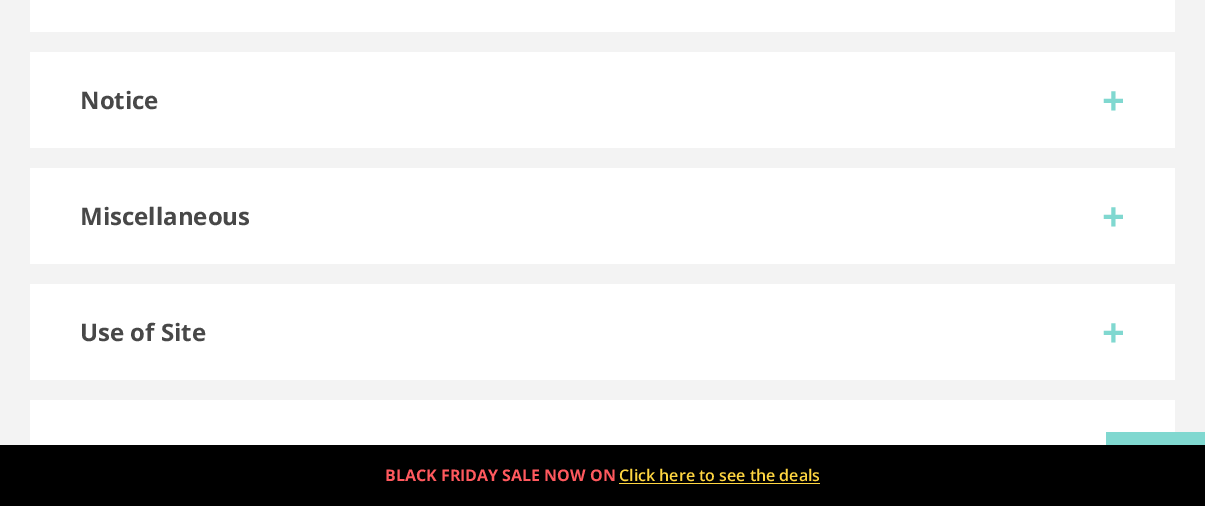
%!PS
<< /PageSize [1205 506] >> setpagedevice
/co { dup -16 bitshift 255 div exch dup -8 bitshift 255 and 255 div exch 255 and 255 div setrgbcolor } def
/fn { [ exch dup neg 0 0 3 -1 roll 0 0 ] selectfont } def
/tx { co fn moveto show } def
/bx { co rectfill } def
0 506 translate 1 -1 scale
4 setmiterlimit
0 0 1205 506 16#F3F3F3 bx
30 0 1145 32 16#FFFFFF bx
30 52 1145 96 16#FFFFFF bx
30 168 1145 96 16#FFFFFF bx
30 284 1145 96 16#FFFFFF bx
30 400 1145 45 16#FFFFFF bx
1106 432 99 13 16#80D8D0 bx
0 445 1205 61 16#000000 bx
619 483 201 1 16#FFD641 bx
(Notice) 80 109 /OpenSans-Bold 24 16#484848 tx
(+) 1102 115 /OpenSans-Bold 40 16#80D8D0 tx
(Miscellaneous) 80 225 /OpenSans-Bold 24 16#484848 tx
(+) 1102 231 /OpenSans-Bold 40 16#80D8D0 tx
(Use of Site) 80 341 /OpenSans-Bold 24 16#484848 tx
(+) 1102 347 /OpenSans-Bold 40 16#80D8D0 tx
(BLACK FRIDAY SALE NOW ON) 385 481 /OpenSans-Bold 16 16#FF595E tx
(Click here to see the deals) 619 481 /OpenSans-SemiBold 16 16#FFD641 tx
showpage
